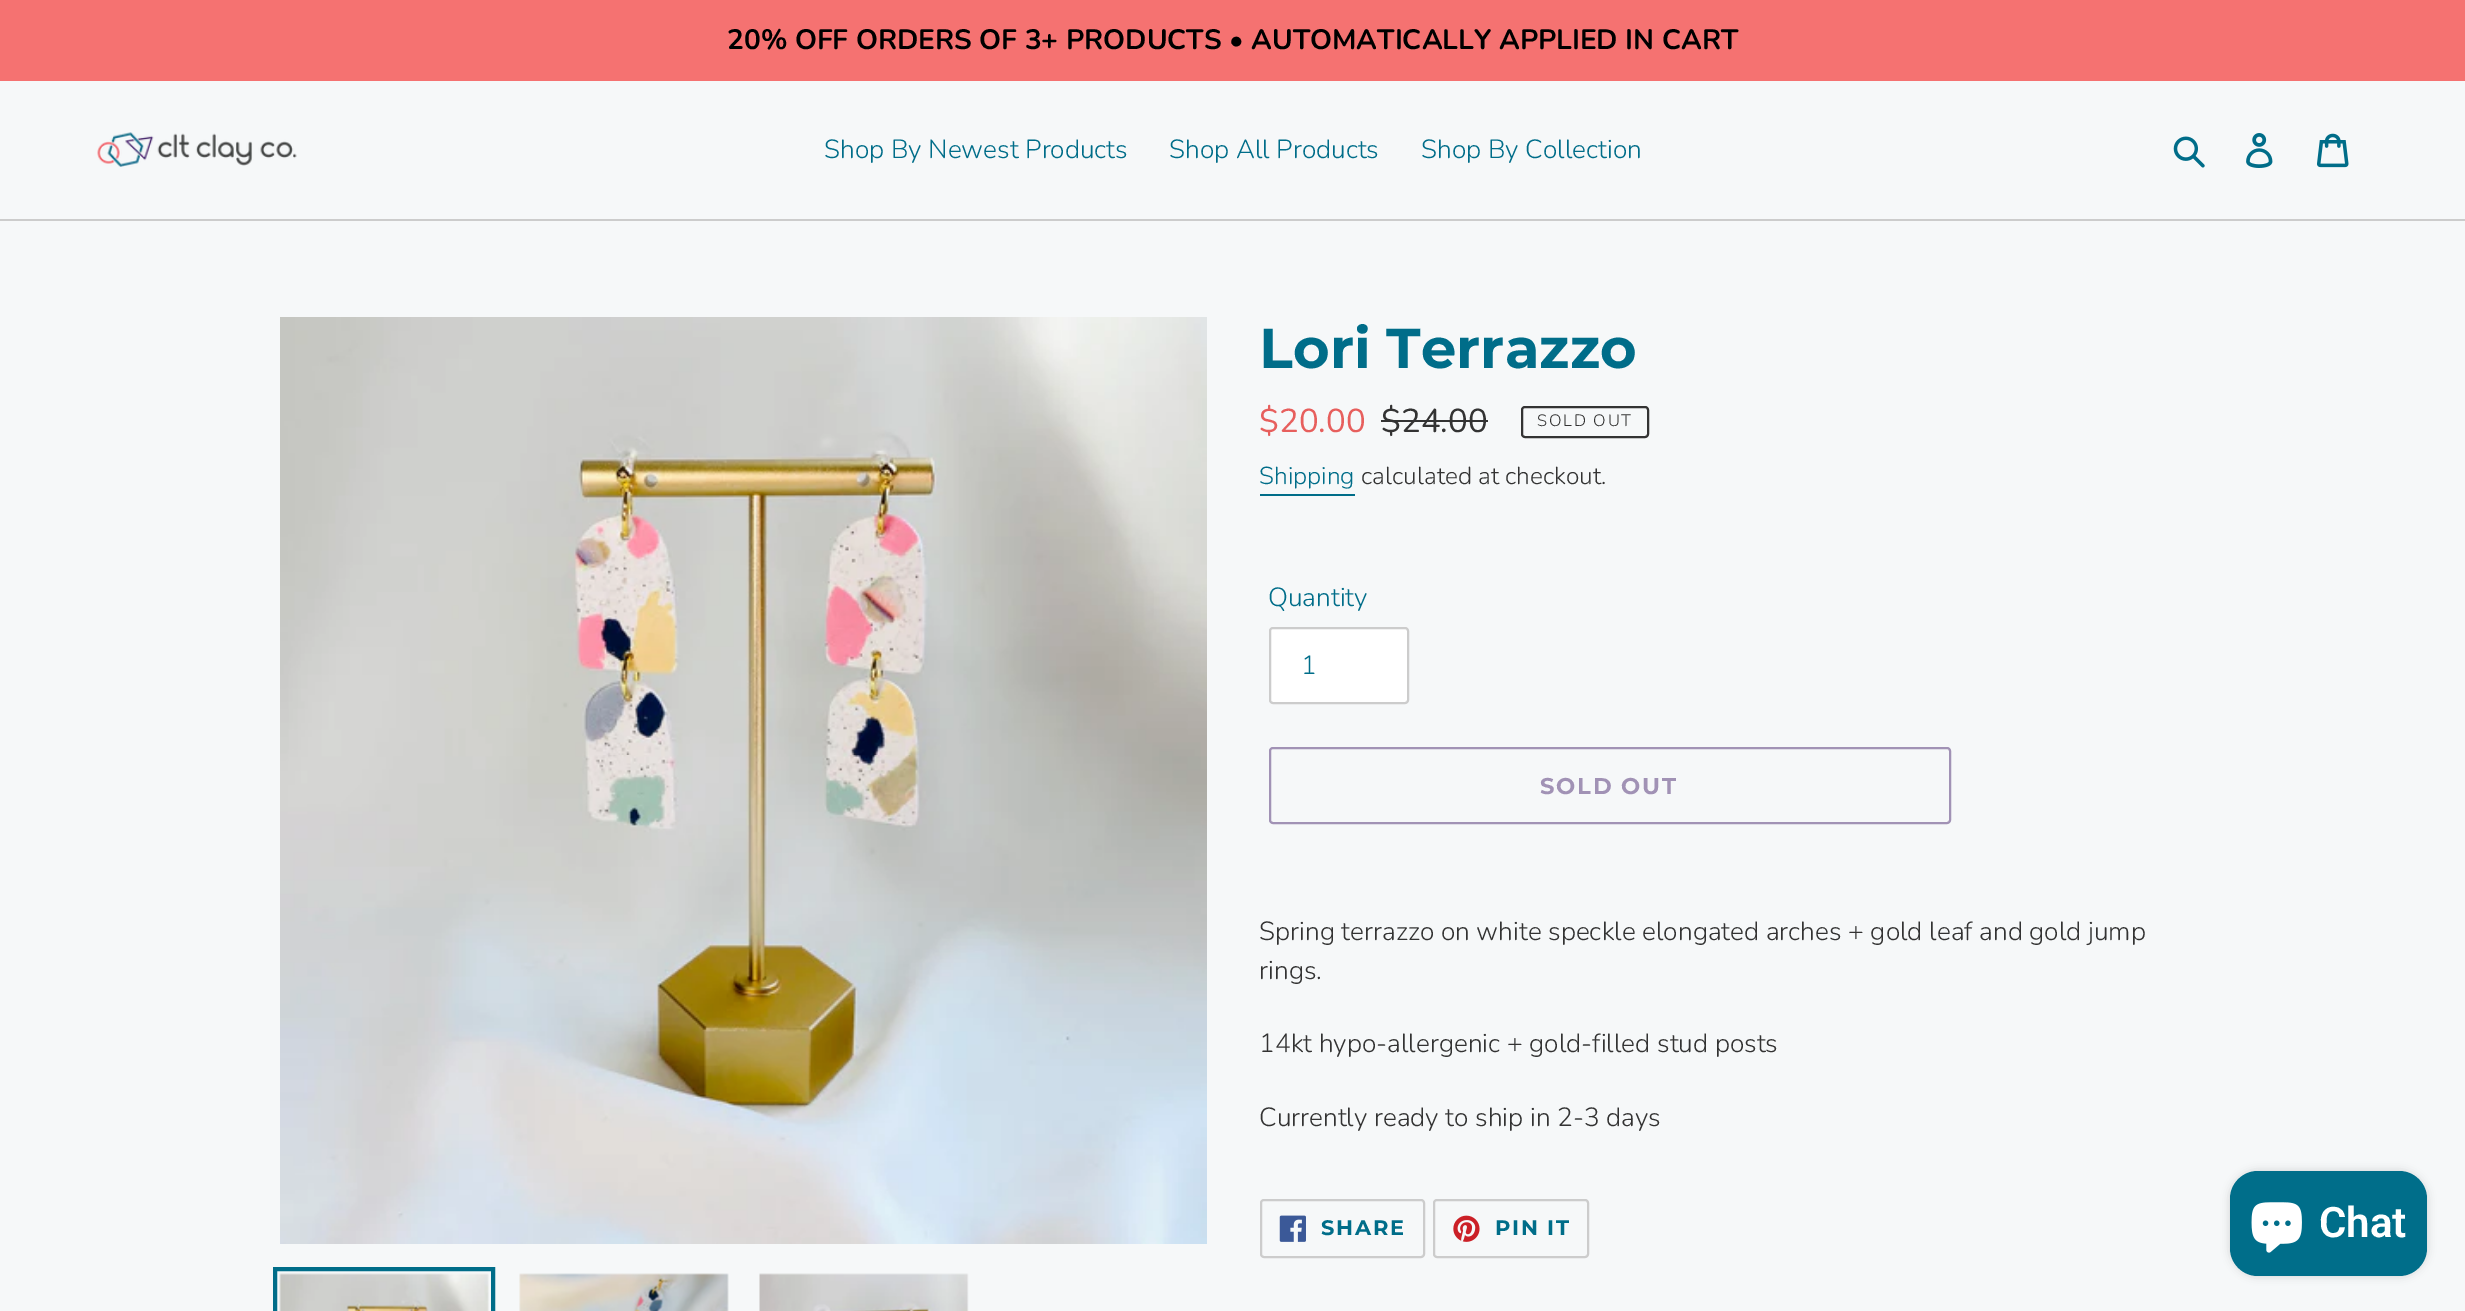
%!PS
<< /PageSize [2465 1311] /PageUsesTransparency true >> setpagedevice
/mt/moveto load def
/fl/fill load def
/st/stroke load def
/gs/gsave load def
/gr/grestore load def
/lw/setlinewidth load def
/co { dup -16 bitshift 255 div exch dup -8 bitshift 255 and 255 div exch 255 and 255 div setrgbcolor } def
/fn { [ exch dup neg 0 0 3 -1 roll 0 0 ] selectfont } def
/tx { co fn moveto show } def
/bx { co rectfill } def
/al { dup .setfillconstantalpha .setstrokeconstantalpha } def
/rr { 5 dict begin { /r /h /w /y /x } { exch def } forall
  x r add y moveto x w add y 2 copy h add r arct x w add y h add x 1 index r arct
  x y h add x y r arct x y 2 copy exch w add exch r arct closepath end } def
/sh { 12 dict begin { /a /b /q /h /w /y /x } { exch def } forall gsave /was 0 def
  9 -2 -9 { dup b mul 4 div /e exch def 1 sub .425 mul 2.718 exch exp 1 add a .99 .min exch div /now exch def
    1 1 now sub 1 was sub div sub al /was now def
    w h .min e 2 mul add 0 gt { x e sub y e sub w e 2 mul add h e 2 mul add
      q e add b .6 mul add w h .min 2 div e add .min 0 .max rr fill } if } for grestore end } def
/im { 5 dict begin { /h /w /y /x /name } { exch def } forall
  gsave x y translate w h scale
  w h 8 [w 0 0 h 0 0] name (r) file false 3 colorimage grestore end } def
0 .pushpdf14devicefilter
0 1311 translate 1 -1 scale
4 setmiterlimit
0 0 2465 1311 16#F6F8F9 bx
0 0 2465 81 16#F57271 bx
0 219 2465 2 16#CCCCCC bx
(media/1.raw) 97 132 200 35 im
(media/2.raw) 2173 136 32 32 im
(media/3.raw) 2246 133 27 35 im
(media/4.raw) 2317 133 32 35 im
(media/5.raw) 280 317 927 927 im
16#006D89 co
4 lw
275 1269 218 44 rectstroke
(media/6.raw) 279 1273 210 38 im
(media/7.raw) 519 1273 210 38 im
(media/8.raw) 759 1273 210 38 im
1381 420 107 2 16#333333 bx
2 lw
1522 407 126 30 3 rr st
1260 494 95 2 16#006D89 bx
16#FFFFFF co
1270 628 138 75 3 rr gs fl gr
16#CCCCCC co
st
16#A192B5 co
1270 748 680 75 3 rr st
16#CCCCCC co
1261 1200 163 57 3 rr st
(media/9.raw) 1279 1215 27 27 im
1434 1200 154 57 3 rr st
(media/10.raw) 1453 1215 27 27 im
16#000000 co
2230 1171 197 105 28 4.5 .15 sh
16#006E8A co
2230 1171 197 105 28 rr fl
(media/11.raw) 2251 1202 51 51 im
(20% OFF ORDERS OF 3+ PRODUCTS • AUTOMATICALLY APPLIED IN CART) 727 49 /Nunito-Bold 28 16#000000 tx
(Shop By Newest Products) 824 158 /Nunito-Light 26.25 16#006D89 tx
(Shop All Products) 1169 158 /Nunito-Light 26.25 16#006D89 tx
(Shop By Collection) 1421 158 /Nunito-Light 26.25 16#006D89 tx
(Lori Terrazzo) 1259 368 /Montserrat-Bold 56 16#006D89 tx
($20.00) 1259 432 /Nunito-Regular 33 16#E75F5D tx
($24.00) 1381 432 /Nunito-Regular 33 16#333333 tx
/Nunito-Light 16.5 fn
1537 426 mt 1.75 0 (SOLD OUT) ashow
(Shipping) 1259 484 /Nunito-Light 24.5 16#006D89 tx
(calculated at checkout.) 1361 484 /Nunito-Light 24.5 16#333333 tx
(Quantity) 1268 606 /Nunito-Light 26.25 16#006D89 tx
(1) 1301 674 /Nunito-Light 26.25 16#006D89 tx
/Montserrat-Bold 22.75 fn
16#A192B5 co
1540 794 mt 1.75 0 (SOLD OUT) ashow
(Spring terrazzo on white speckle elongated arches + gold leaf and gold jump) 1259 940 /Nunito-Light 26.25 16#333333 tx
(rings.) 1259 979 /Nunito-Light 26.25 16#333333 tx
(14kt hypo-allergenic + gold-filled stud posts) 1259 1052 /Nunito-Light 26.25 16#333333 tx
(Currently ready to ship in 2-3 days) 1259 1126 /Nunito-Light 26.25 16#333333 tx
/Montserrat-Bold 21 fn
16#006D89 co
1321 1235 mt 1.75 0 (SHARE) ashow
1495 1235 mt 1.75 0 (PIN IT) ashow
(Chat) 2319 1237 /Roboto-SemiBold 42 16#FFFFFF tx
.poppdf14devicefilter showpage
